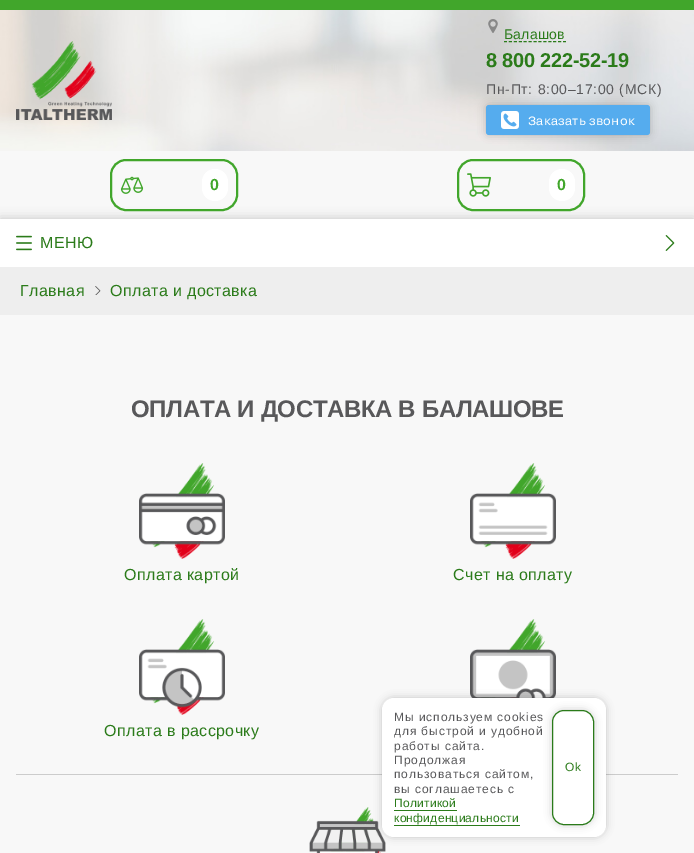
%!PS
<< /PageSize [694 853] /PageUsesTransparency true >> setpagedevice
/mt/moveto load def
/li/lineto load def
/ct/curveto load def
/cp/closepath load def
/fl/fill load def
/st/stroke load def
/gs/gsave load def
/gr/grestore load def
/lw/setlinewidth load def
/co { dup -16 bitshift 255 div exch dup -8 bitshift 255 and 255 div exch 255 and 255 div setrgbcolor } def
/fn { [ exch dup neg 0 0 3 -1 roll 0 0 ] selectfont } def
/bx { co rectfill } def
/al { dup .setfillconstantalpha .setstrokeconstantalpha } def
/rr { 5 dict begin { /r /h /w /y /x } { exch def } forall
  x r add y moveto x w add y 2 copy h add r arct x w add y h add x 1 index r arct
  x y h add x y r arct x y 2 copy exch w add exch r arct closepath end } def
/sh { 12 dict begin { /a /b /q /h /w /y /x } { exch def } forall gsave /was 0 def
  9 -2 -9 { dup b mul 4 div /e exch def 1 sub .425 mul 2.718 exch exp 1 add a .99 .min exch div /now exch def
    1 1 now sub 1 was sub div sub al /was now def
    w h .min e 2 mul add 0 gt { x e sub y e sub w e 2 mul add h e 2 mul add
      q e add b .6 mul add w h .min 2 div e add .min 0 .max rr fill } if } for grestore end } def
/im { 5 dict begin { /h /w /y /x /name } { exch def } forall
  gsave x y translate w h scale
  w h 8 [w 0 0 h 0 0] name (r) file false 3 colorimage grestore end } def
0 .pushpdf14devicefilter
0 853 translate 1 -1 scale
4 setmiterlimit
0 0 694 853 16#F8F8F8 bx
(media/1.raw) 0 10 694 141 im
0 0 694 10 16#41A62B bx
(media/2.raw) 16 41 96 79 im
(media/3.raw) 488 19 10 14 im
16#2B7B1A co
[3 1.92] 0 setdash
504 41.5 mt 566 41.5 li st
16#000000 co
486 105 164 30 3 4 .2 sh
16#55ACEE co
486 105 164 30 3 rr fl
(media/4.raw) 501 111 18 18 im
16#000000 co
0 219 694 48 0 5.5 .2 sh
16#41A62B co
2 lw
[] 0 setdash
111 160 126 50 15 rr st
(media/5.raw) 120 176 24 18 im
16#FFFFFF co
202 169 26 32 13 rr fl
16#41A62B co
458 160 126 50 15 rr st
(media/6.raw) 467 173 24 24 im
16#FFFFFF co
549 169 26 32 13 rr fl
0 219 694 48 16#FFFFFF bx
(media/7.raw) 16 235 16 16 im
(media/8.raw) 665 235 10 16 im
0 267 694 48 16#EEEEEE bx
(media/9.raw) 95 286 6 9 im
(media/10.raw) 139 463 86 96 im
(media/11.raw) 470 463 86 96 im
(media/12.raw) 470 619 86 79 im
(media/13.raw) 139 619 86 96 im
16 774 662 1 16#CCCCCC bx
(media/14.raw) 309 807 77 46 im
16#000000 co
382 698 224 139 12 4 .2 sh
16#FFFFFF co
382 698 224 139 12 rr fl
394 810 63 1 16#2B7B1A bx
394 825 126 1 16#2B7B1A bx
gs
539 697 mt 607 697 li 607 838 li 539 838 li cp 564 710 mt 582 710 li 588.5 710 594 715.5 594 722 ct 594 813 li 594 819.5 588.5 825 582 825 ct 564 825 li 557.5 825 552 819.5 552 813 ct 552 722 li 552 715.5 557.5 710 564 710 ct cp eoclip newpath
16#000000 co
552 710 42 115 12 4 .2 sh
gr
1 lw
552.5 710.5 41 114 11.5 rr st
/LiberationSans-Regular 14 fn
504 39 mt .25 0 (Балашов) ashow
/LiberationSans-Bold 20 fn
486 67 mt -.25 0 (8 800 222-52-19) ashow
/LiberationSans-Regular 14 fn
16#58585A co
486 94 mt .7 0 (Пн-Пт: 8:00–17:00 \(МСК\)) ashow
/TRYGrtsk-Regular 12 fn
16#FFFFFF co
528 125 mt .25 0 (Заказать звонок) ashow
/LiberationSans-Bold 16 fn
16#41A62B co
210 190 mt .4 0 (0) ashow
557 190 mt .4 0 (0) ashow
/LiberationSans-Regular 16 fn
16#2B7B1A co
40 248 mt .4 0 (МЕНЮ) ashow
20 296 mt .4 0 (Главная) ashow
110 296 mt .4 0 (Оплата и доставка) ashow
/LiberationSans-Bold 24 fn
16#58585A co
131 417 mt -.35 0 (ОПЛАТА И ДОСТАВКА В БАЛАШОВЕ) ashow
/LiberationSans-Regular 16 fn
16#2B7B1A co
124 580 mt .4 0 (Оплата картой) ashow
453 580 mt .4 0 (Счет на оплату) ashow
104 736 mt .4 0 (Оплата в рассрочку) ashow
/LiberationSans-Regular 12 fn
16#58585A co
394 721 mt .9 0 (Мы используем cookies) ashow
394 735 mt .9 0 (для быстрой и удобной) ashow
394 750 mt .9 0 (работы сайта.) ashow
394 764 mt .9 0 (Продолжая) ashow
394 778 mt .9 0 (пользоваться сайтом,) ashow
394 793 mt .9 0 (вы соглашаетесь с) ashow
16#2B7B1A co
394 807 mt .25 0 (Политикой) ashow
394 822 mt .25 0 (конфиденциальности) ashow
565 771 mt .25 0 (Ok) ashow
.poppdf14devicefilter showpage
